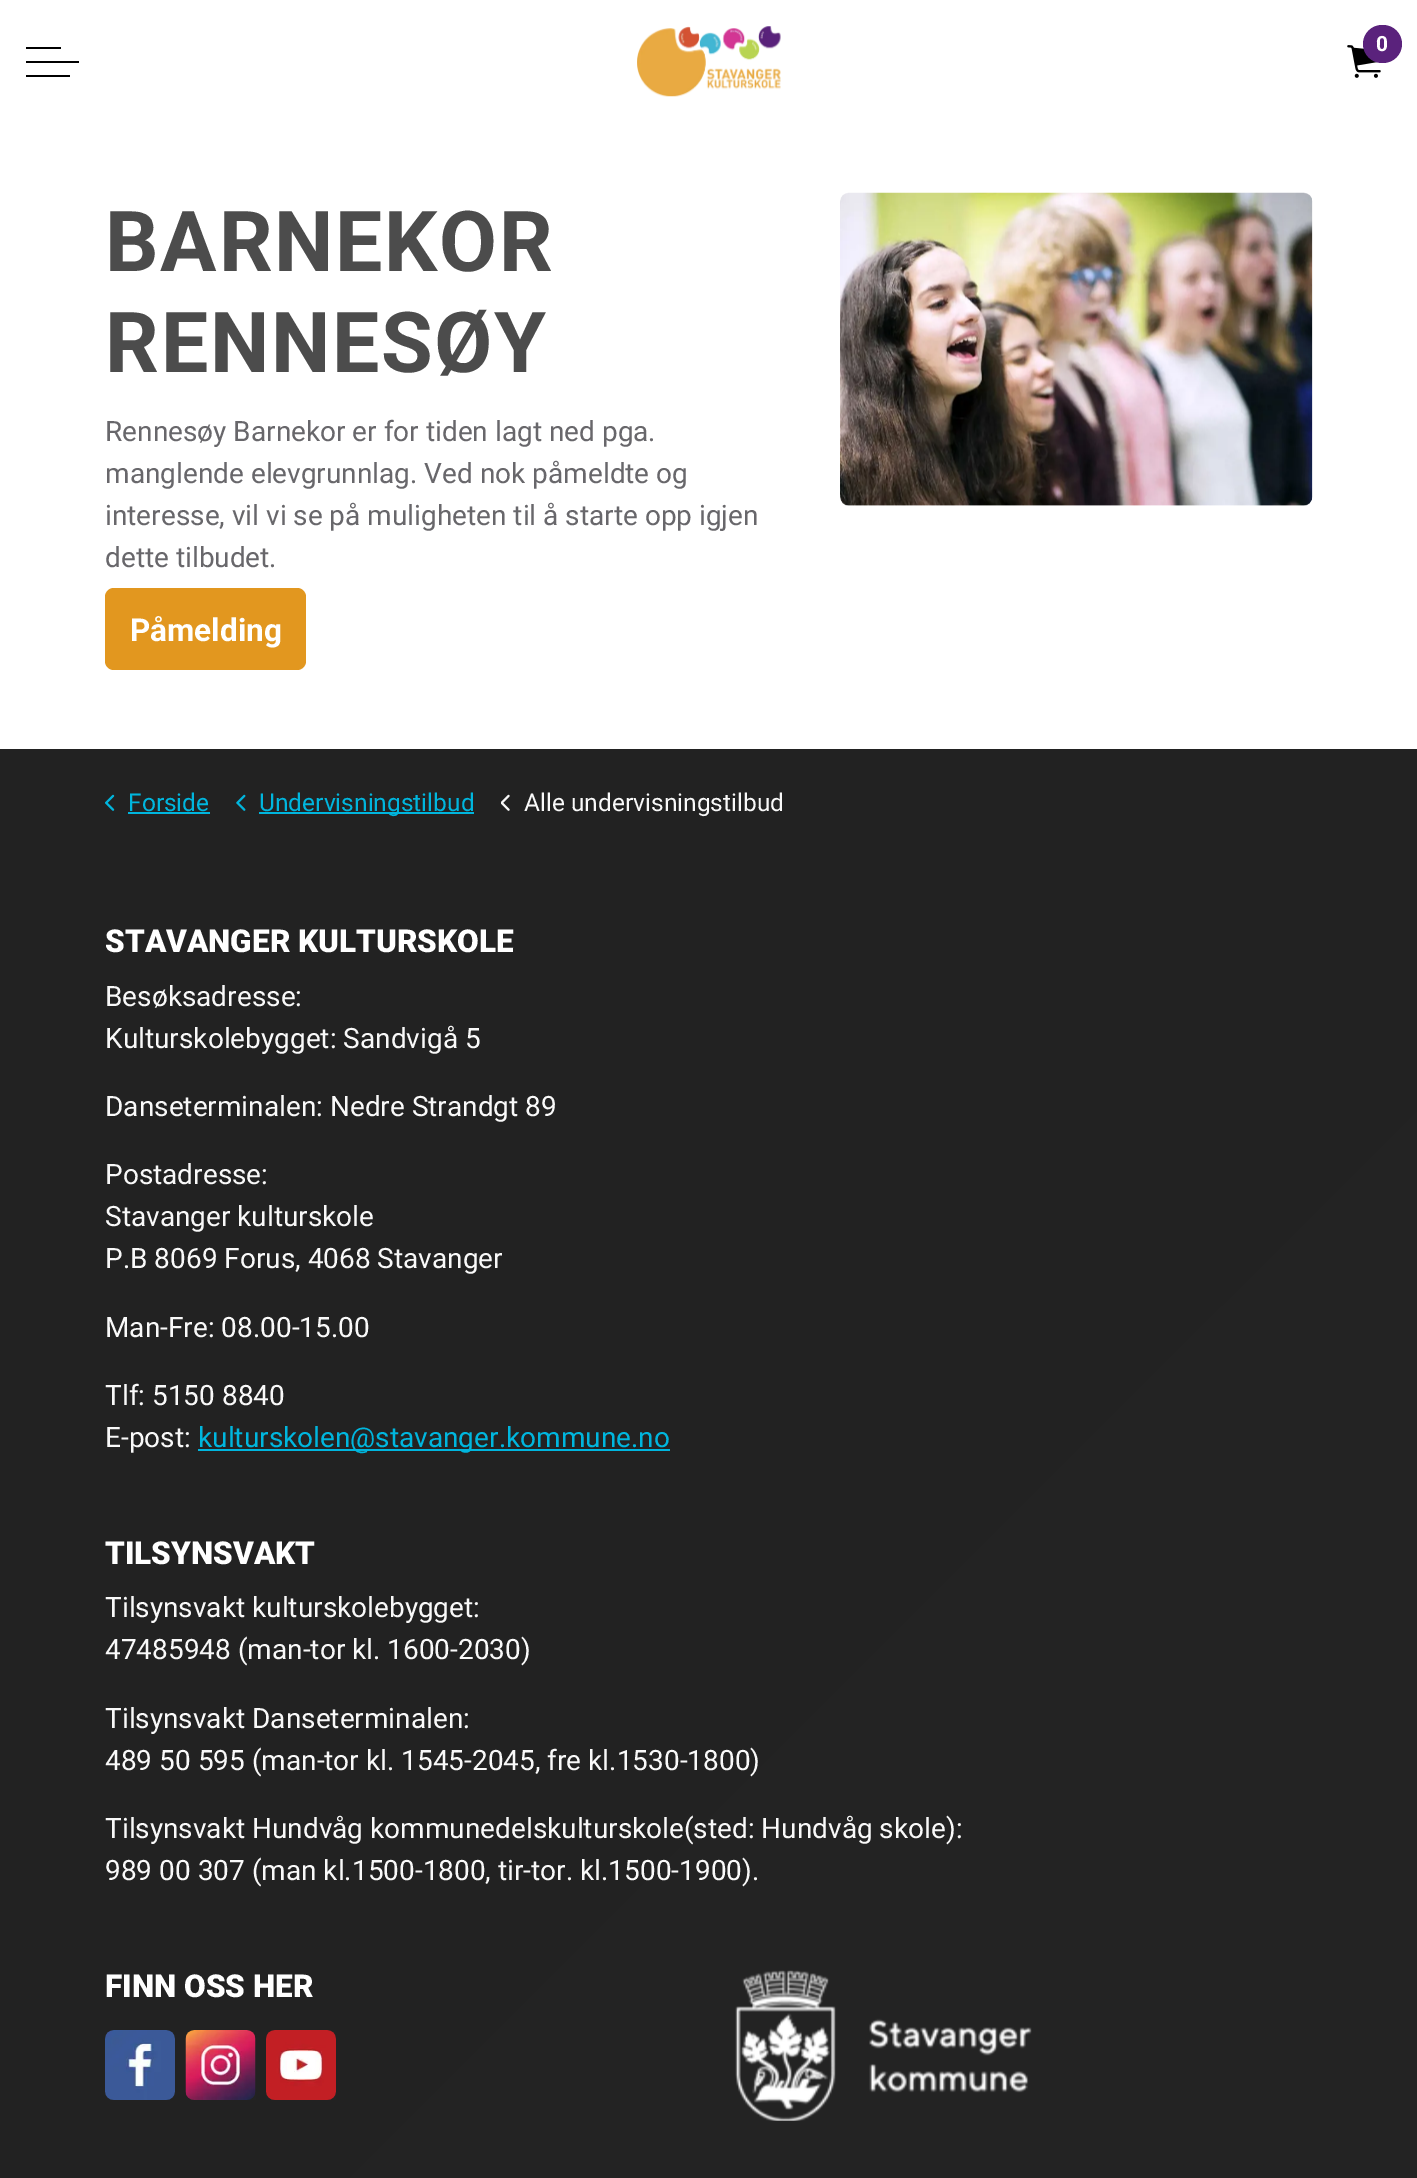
%!PS
<< /PageSize [1417 2178] >> setpagedevice
/mt/moveto load def
/li/lineto load def
/cp/closepath load def
/fl/fill load def
/gs/gsave load def
/gr/grestore load def
/co { dup -16 bitshift 255 div exch dup -8 bitshift 255 and 255 div exch 255 and 255 div setrgbcolor } def
/fn { [ exch dup neg 0 0 3 -1 roll 0 0 ] selectfont } def
/tx { co fn moveto show } def
/bx { co rectfill } def
/rr { 5 dict begin { /r /h /w /y /x } { exch def } forall
  x r add y moveto x w add y 2 copy h add r arct x w add y h add x 1 index r arct
  x y h add x y r arct x y 2 copy exch w add exch r arct closepath end } def
/im { 5 dict begin { /h /w /y /x /name } { exch def } forall
  gsave x y translate w h scale
  w h 8 [w 0 0 h 0 0] name (r) file false 3 colorimage grestore end } def
0 2178 translate 1 -1 scale
4 setmiterlimit
0 0 1417 2178 16#FFFFFF bx
(media/1.raw) 637 26 144 71 im
(media/2.raw) 1347 45 34 33 im
16#5A227C co
1363 25 39 38 19 rr fl
26 61 53 2 16#000000 bx
26 47 35 2 16#000000 bx
26 75 44 2 16#000000 bx
16#E2971F co
105 588 201 82 9 rr fl
(media/3.raw) 840 192 473 314 im
gs 0 749 mt 1417 749 li 1417 2178 li 0 2178 li cp clip newpath
<< /ShadingType 2 /ColorSpace /DeviceRGB /Coords [-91 840 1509 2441] /Extend [true true] /Function << /FunctionType 2 /Domain [0 1] /C0 [.133 .133 .133] /C1 [.137 .137 .137] /N 1 >> >> shfill gr
(media/4.raw) 105 794 10 17 im
128 812 82 2 16#00B6DE bx
(media/5.raw) 236 794 10 17 im
259 812 215 2 16#00B6DE bx
(media/6.raw) 501 794 9 17 im
198 1449 472 2 16#00B6DE bx
(media/7.raw) 105 2030 70 70 im
(media/8.raw) 185 2030 71 70 im
(media/9.raw) 266 2030 70 70 im
(media/10.raw) 735 1970 297 151 im
(0) 1376 51 /Roboto-Bold 21 16#FFFFFF tx
/Roboto-Bold 84 fn
16#4C4C4C co
105 271 mt 1.75 0 (BARNEKOR) ashow
105 372 mt 1.75 0 (RENNESØY) ashow
(Rennesøy Barnekor er for tiden lagt ned pga.) 105 441 /Roboto-Regular 28 16#68676B tx
(manglende elevgrunnlag. Ved nok påmeldte og) 105 483 /Roboto-Regular 28 16#68676B tx
(interesse, vil vi se på muligheten til å starte opp igjen) 105 525 /Roboto-Regular 28 16#68676B tx
(dette tilbudet.) 105 567 /Roboto-Regular 28 16#68676B tx
(Påmelding) 130 641 /Roboto-Bold 31.5 16#FFFFFF tx
(Forside) 128 811 /Roboto-Regular 24.5 16#00B6DE tx
(Undervisningstilbud) 259 811 /Roboto-Regular 24.5 16#00B6DE tx
(Alle undervisningstilbud) 524 811 /Roboto-Regular 24.5 16#F9F9F9 tx
(STAVANGER KULTURSKOLE) 105 952 /Roboto-Black 31.5 16#FFFFFF tx
(Besøksadresse:) 105 1006 /Roboto-Regular 28 16#F9F9F9 tx
(Kulturskolebygget: Sandvigå 5) 105 1048 /Roboto-Regular 28 16#F9F9F9 tx
(Danseterminalen: Nedre Strandgt 89) 105 1116 /Roboto-Regular 28 16#F9F9F9 tx
(Postadresse:) 105 1184 /Roboto-Regular 28 16#F9F9F9 tx
(Stavanger kulturskole) 105 1226 /Roboto-Regular 28 16#F9F9F9 tx
(P.B 8069 Forus, 4068 Stavanger) 105 1268 /Roboto-Regular 28 16#F9F9F9 tx
(Man-Fre: 08.00-15.00) 105 1337 /Roboto-Regular 28 16#F9F9F9 tx
(Tlf: 5150 8840) 105 1405 /Roboto-Regular 28 16#F9F9F9 tx
(E-post:) 105 1447 /Roboto-Regular 28 16#F9F9F9 tx
(kulturskolen@stavanger.kommune.no) 198 1447 /Roboto-Regular 28 16#00B6DE tx
(TILSYNSVAKT) 105 1564 /Roboto-Black 31.5 16#FFFFFF tx
(Tilsynsvakt kulturskolebygget:) 105 1617 /Roboto-Regular 28 16#F9F9F9 tx
(47485948 \(man-tor kl. 1600-2030\)) 105 1659 /Roboto-Regular 28 16#F9F9F9 tx
(Tilsynsvakt Danseterminalen:) 105 1728 /Roboto-Regular 28 16#F9F9F9 tx
(489 50 595 \(man-tor kl. 1545-2045, fre kl.1530-1800\)) 105 1770 /Roboto-Regular 28 16#F9F9F9 tx
(Tilsynsvakt Hundvåg kommunedelskulturskole\(sted: Hundvåg skole\):) 105 1838 /Roboto-Regular 28 16#F9F9F9 tx
(989 00 307 \(man kl.1500-1800, tir-tor. kl.1500-1900\).) 105 1880 /Roboto-Regular 28 16#F9F9F9 tx
(FINN OSS HER) 105 1997 /Roboto-Black 31.5 16#FFFFFF tx
showpage
